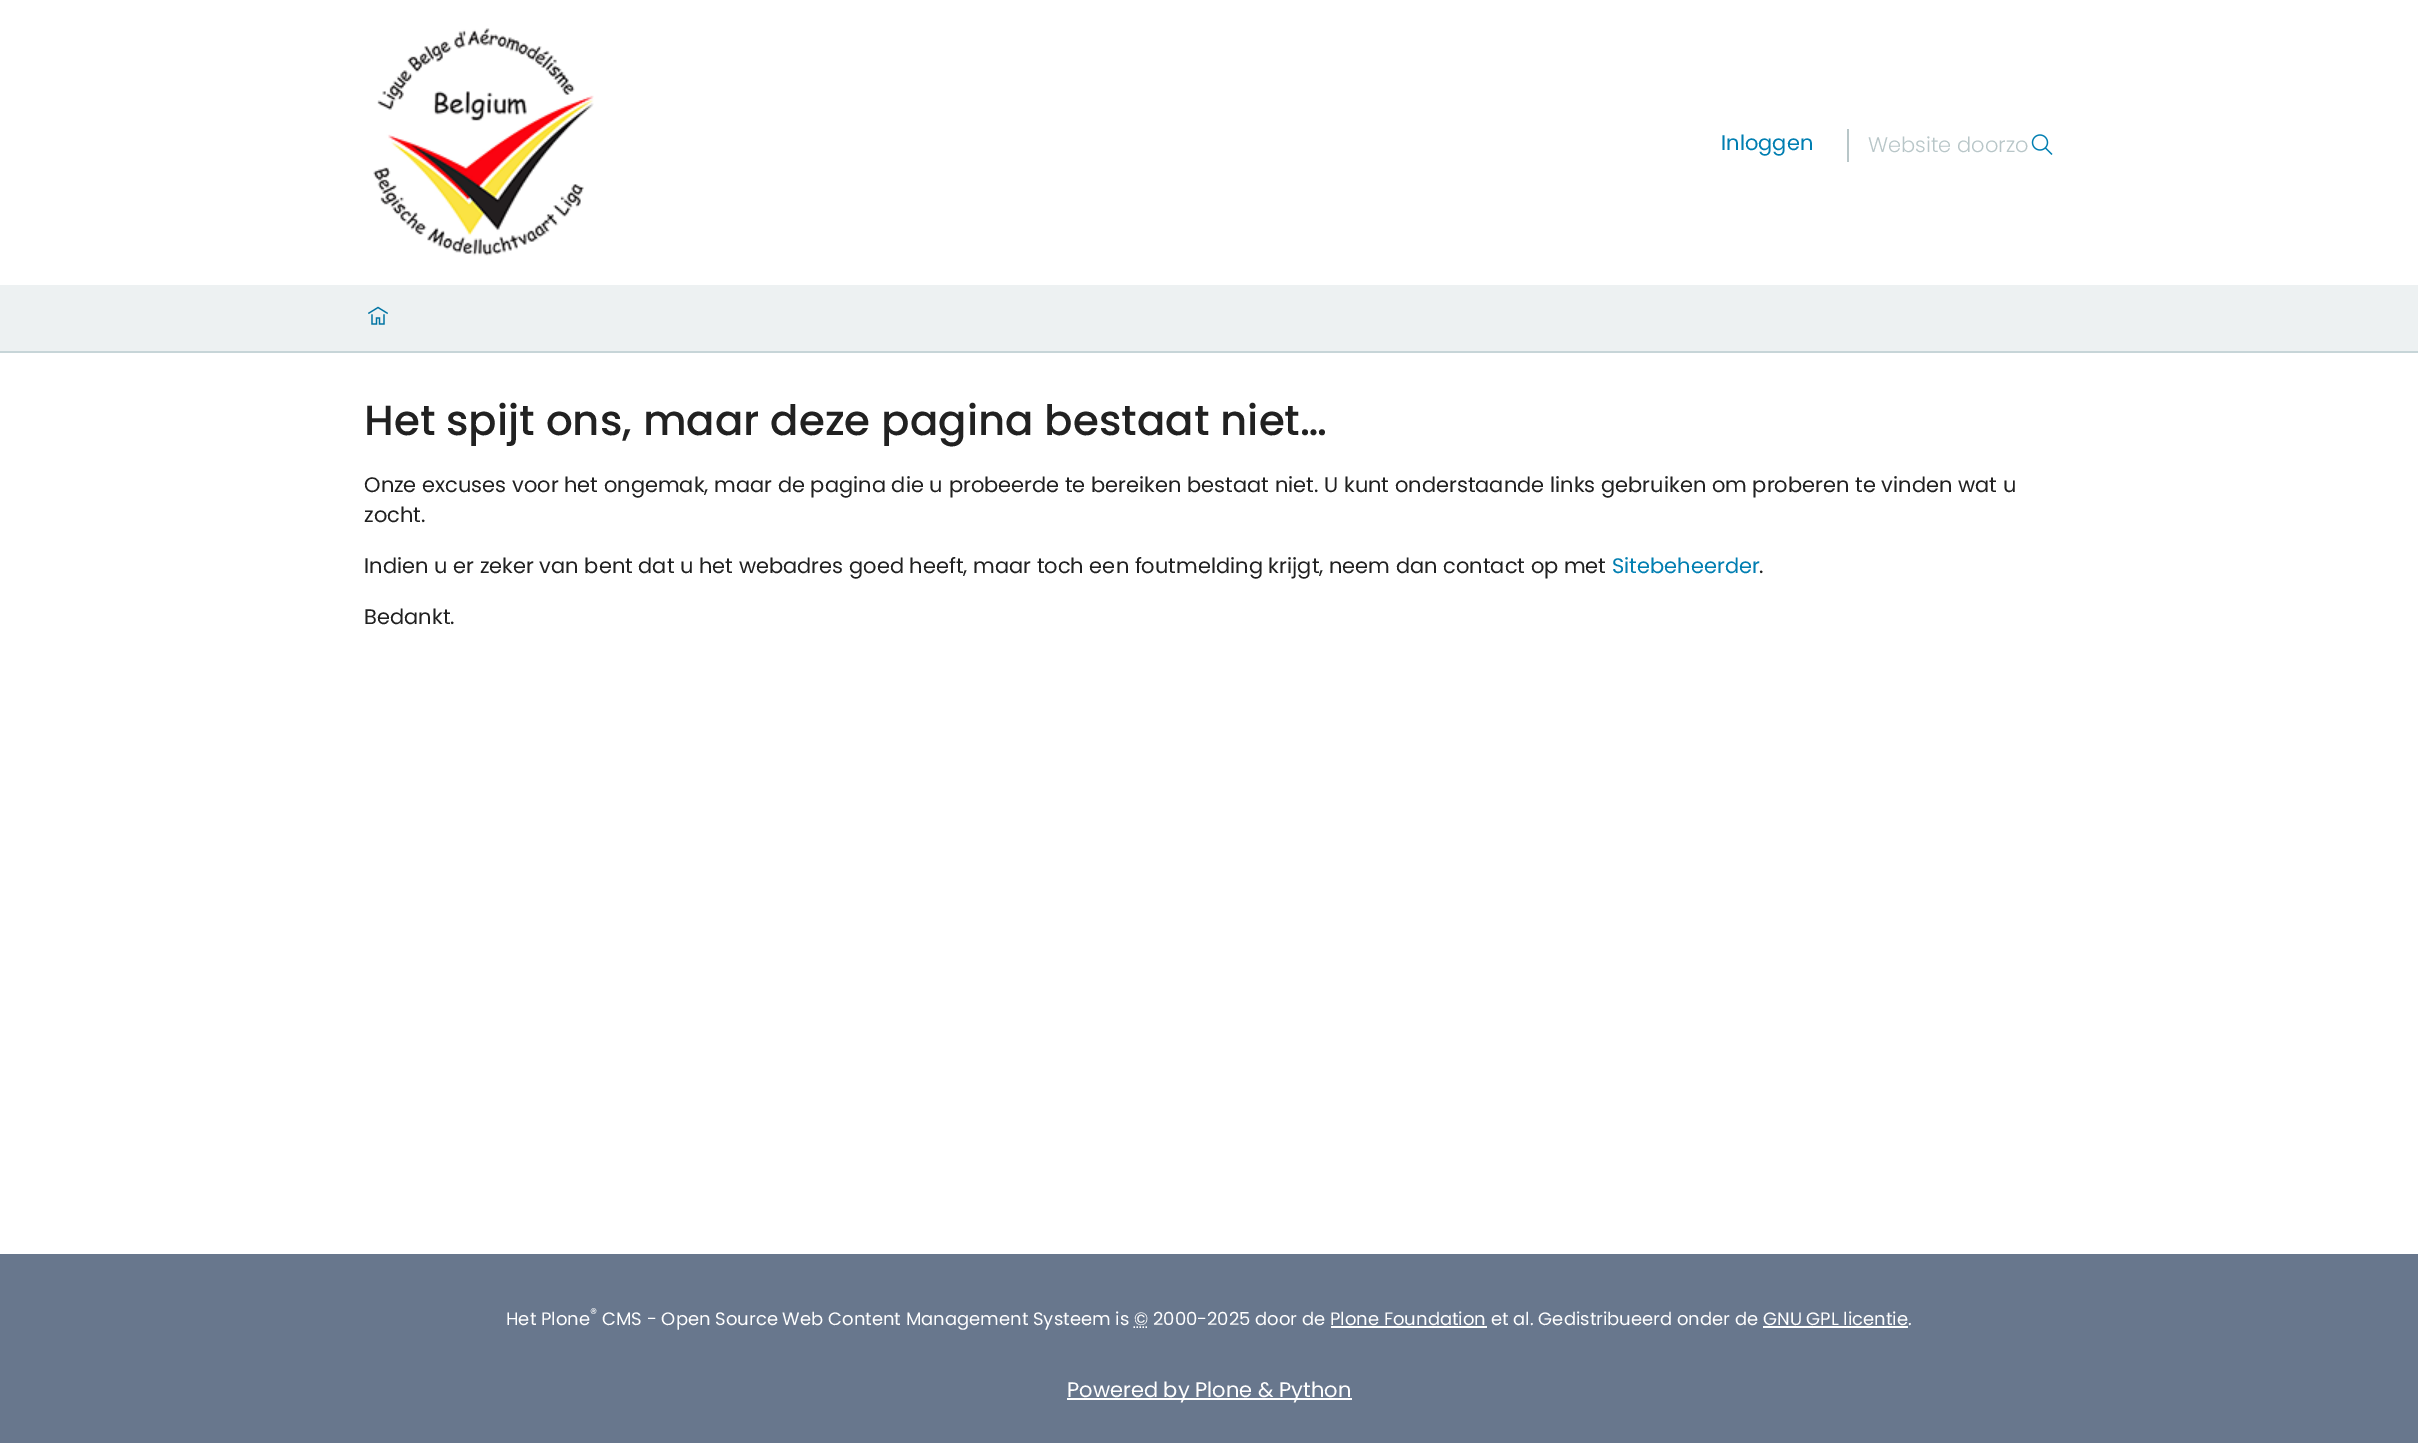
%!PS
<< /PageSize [2418 1443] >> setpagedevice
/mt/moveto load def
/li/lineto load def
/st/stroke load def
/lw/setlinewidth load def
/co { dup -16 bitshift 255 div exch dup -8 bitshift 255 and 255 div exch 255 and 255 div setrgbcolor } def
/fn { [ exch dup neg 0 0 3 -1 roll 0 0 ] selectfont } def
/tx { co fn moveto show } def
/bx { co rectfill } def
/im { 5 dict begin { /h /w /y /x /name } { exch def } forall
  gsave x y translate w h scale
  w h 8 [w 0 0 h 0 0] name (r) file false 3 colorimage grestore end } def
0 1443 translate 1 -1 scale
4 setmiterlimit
0 0 2418 1443 16#FFFFFF bx
(media/1.raw) 373 28 221 228 im
1847 129 2 33 16#B8C6C8 bx
(media/2.raw) 2031 134 22 21 im
0 285 2418 66 16#EDF1F2 bx
0 351 2418 2 16#C7D5D8 bx
(media/3.raw) 368 306 20 19 im
0 1254 2418 189 16#68778D bx
16#FFFFFF co
1.5 lw
[1.5 1.5] 0 setdash
1133.5 1327 mt 1148 1327 li st
1331 1326 156 2 16#FFFFFF bx
1763 1326 145 2 16#FFFFFF bx
1067 1398 285 2 16#FFFFFF bx
(Inloggen) 1721 150 /Poppins-Regular 21 16#007EB1 tx
(Website doorzo) 1868 152 /Poppins-Light 21 16#B8C6C8 tx
(Het spijt ons, maar deze pagina bestaat niet…) 364 435 /Poppins-Medium 42 16#212121 tx
(Onze excuses voor het ongemak, maar de pagina die u probeerde te bereiken bestaat niet. U kunt onderstaande links gebruiken om proberen te vinden wat u) 364 492 /Poppins-Regular 21 16#212121 tx
(zocht.) 364 522 /Poppins-Regular 21 16#212121 tx
(Indien u er zeker van bent dat u het webadres goed heeft, maar toch een foutmelding krijgt, neem dan contact op met) 364 573 /Poppins-Regular 21 16#212121 tx
(Sitebeheerder) 1612 573 /Poppins-Regular 21 16#007EB1 tx
(.) 1759 573 /Poppins-Regular 21 16#212121 tx
(Bedankt.) 364 624 /Poppins-Regular 21 16#212121 tx
(Het Plone) 506 1325 /Poppins-Regular 18 16#FFFFFF tx
(®) 590 1318 /Poppins-Regular 14 16#FFFFFF tx
(CMS - Open Source Web Content Management Systeem is © 2000-2025 door de Plone Foundation et al. Gedistribueerd onder de GNU GPL licentie.) 602 1325 /Poppins-Regular 18 16#FFFFFF tx
(Powered by Plone & Python) 1067 1397 /Poppins-Regular 21 16#FFFFFF tx
showpage
